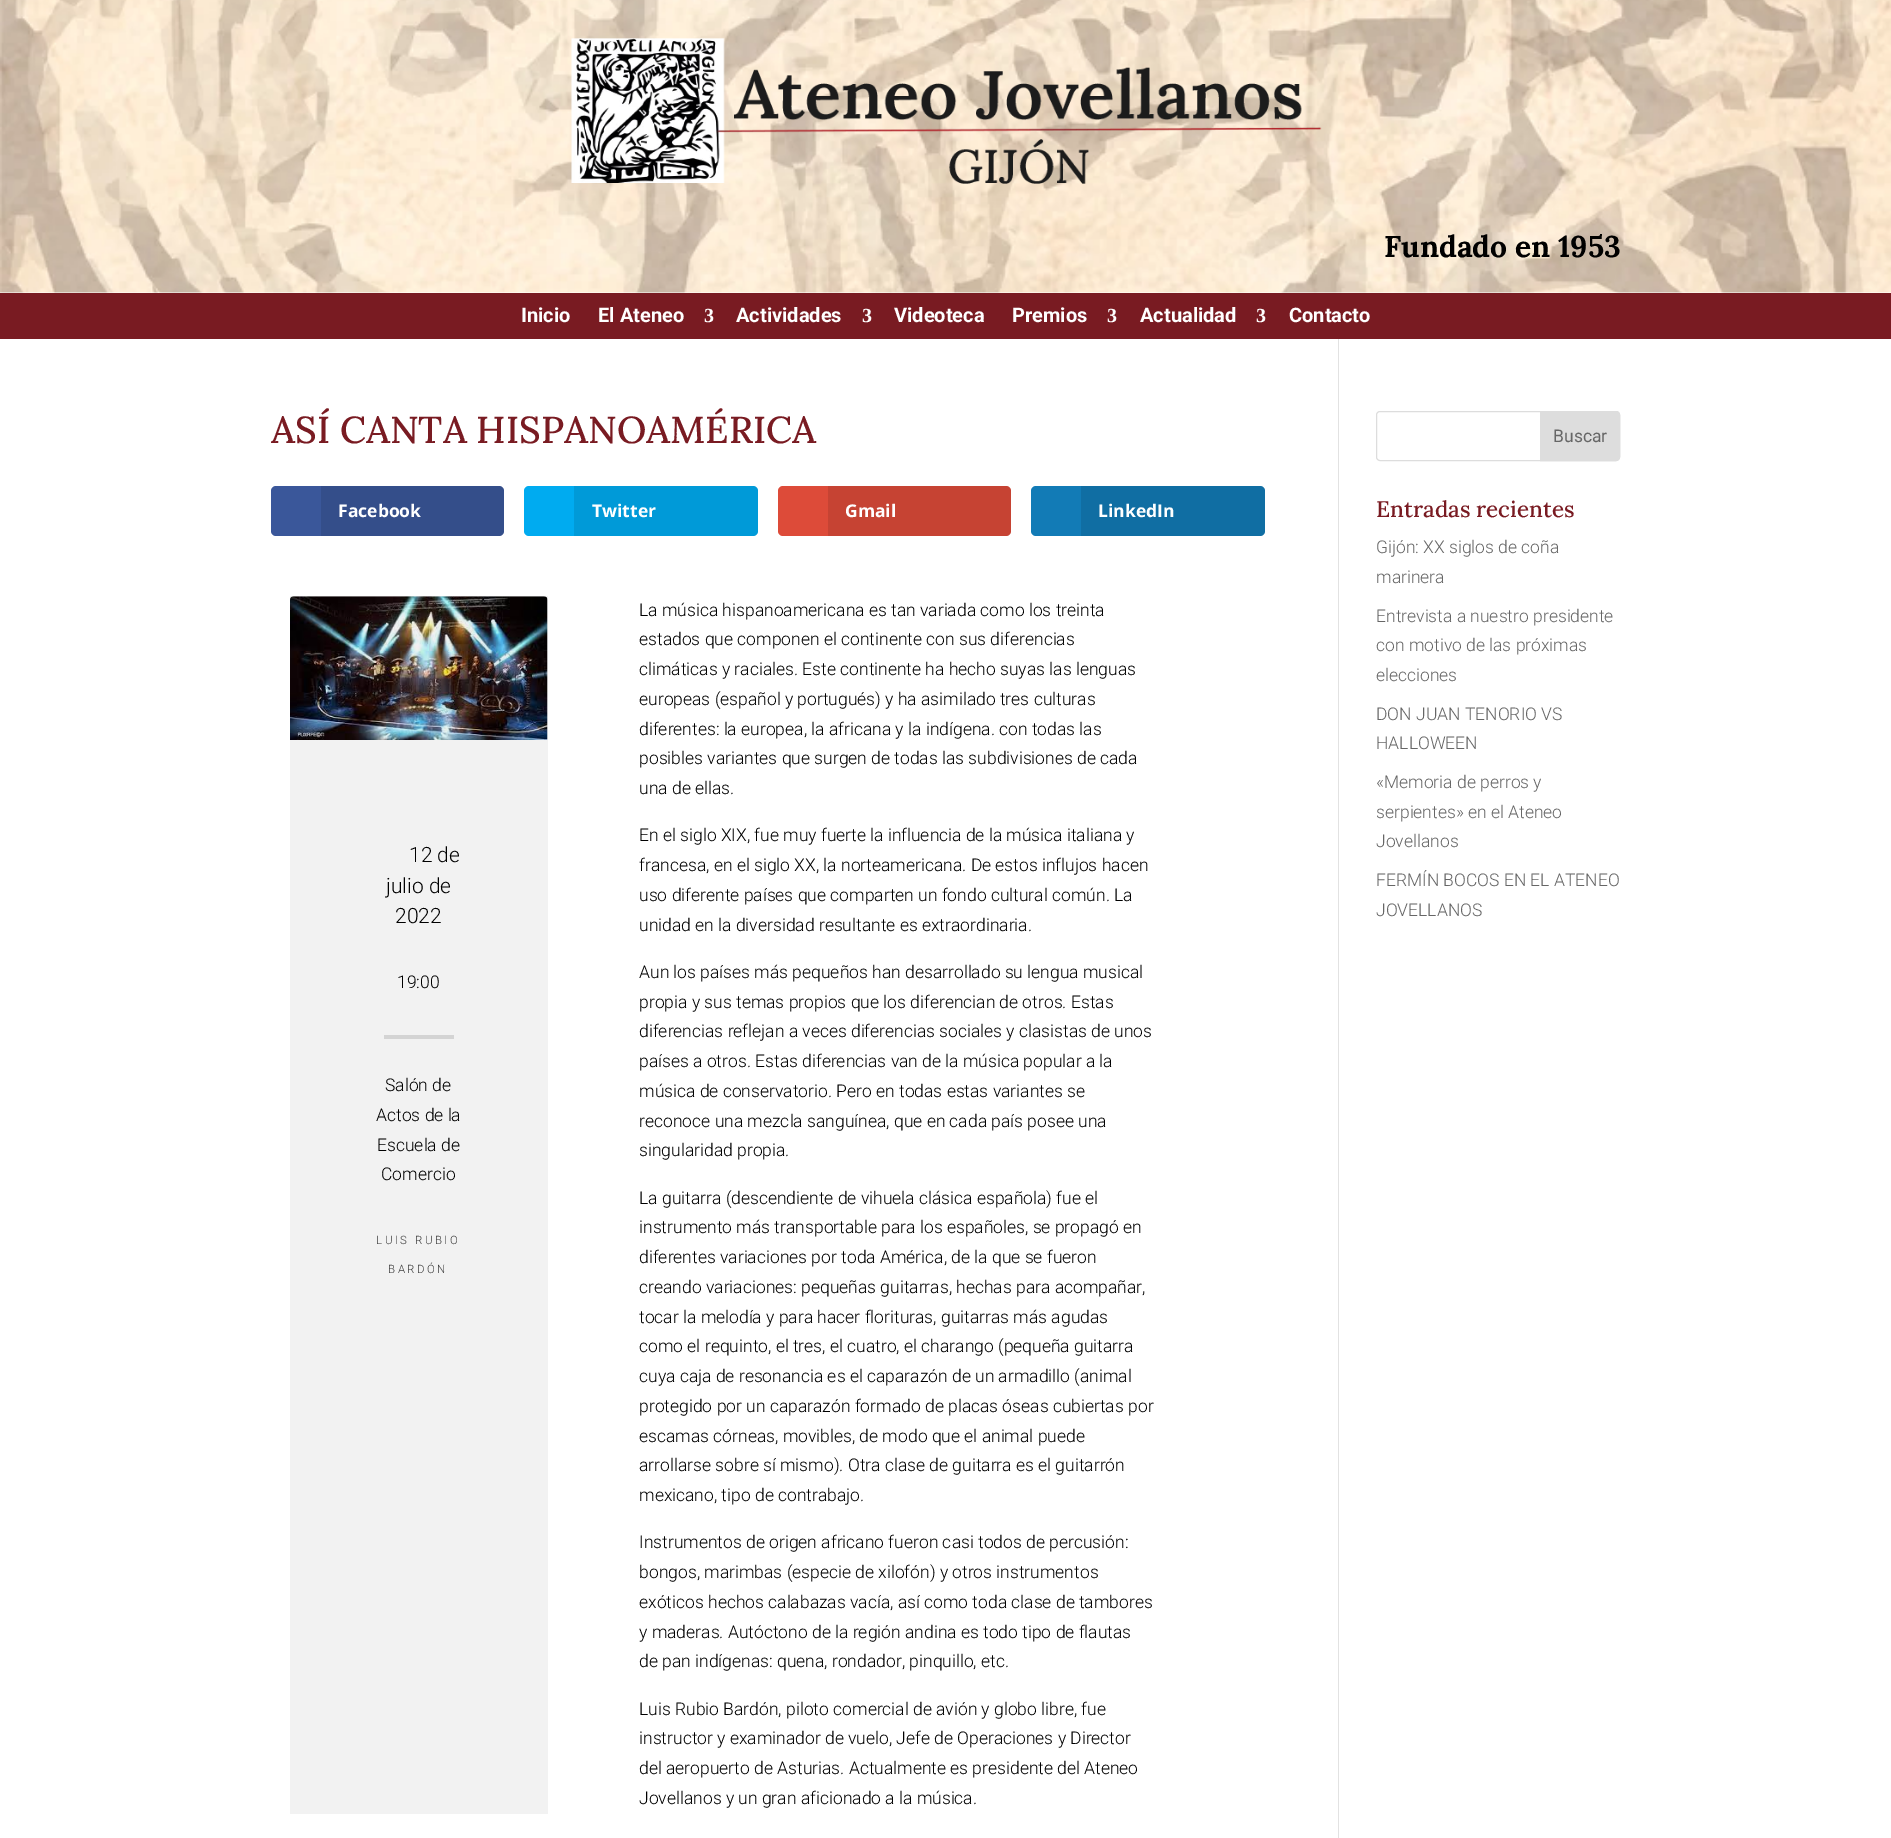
%!PS
<< /PageSize [1891 1838] /PageUsesTransparency true >> setpagedevice
/mt/moveto load def
/li/lineto load def
/ct/curveto load def
/cp/closepath load def
/fl/fill load def
/st/stroke load def
/gs/gsave load def
/gr/grestore load def
/co { dup -16 bitshift 255 div exch dup -8 bitshift 255 and 255 div exch 255 and 255 div setrgbcolor } def
/fn { [ exch dup neg 0 0 3 -1 roll 0 0 ] selectfont } def
/tx { co fn moveto show } def
/bx { co rectfill } def
/al { dup .setfillconstantalpha .setstrokeconstantalpha } def
/rr { 5 dict begin { /r /h /w /y /x } { exch def } forall
  x r add y moveto x w add y 2 copy h add r arct x w add y h add x 1 index r arct
  x y h add x y r arct x y 2 copy exch w add exch r arct closepath end } def
/im { 5 dict begin { /h /w /y /x /name } { exch def } forall
  gsave x y translate w h scale
  w h 8 [w 0 0 h 0 0] name (r) file false 3 colorimage grestore end } def
0 .pushpdf14devicefilter
0 1838 translate 1 -1 scale
4 setmiterlimit
0 0 1891 1838 16#FFFFFF bx
(media/1.raw) 0 0 1891 293 im
(media/2.raw) 571 38 751 146 im
0 293 1891 46 16#791B22 bx
1338 339 1 1499 16#E2E2E2 bx
16#3A579A co
271 486 233 50 5 rr fl
0.1 al
16#000000 co
321 486 mt 499 486 li 502 486 504 488 504 491 ct 504 531 li 504 534 502 536 499 536 ct 321 536 li cp fl
1 al
16#00ABF0 co
524 486 234 50 5 rr fl
0.1 al
16#000000 co
574 486 mt 753 486 li 756 486 758 488 758 491 ct 758 531 li 758 534 756 536 753 536 ct 574 536 li cp fl
1 al
16#DD4B39 co
778 486 233 50 5 rr fl
0.1 al
16#000000 co
828 486 mt 1006 486 li 1009 486 1011 488 1011 491 ct 1011 531 li 1011 534 1009 536 1006 536 ct 828 536 li cp fl
1 al
16#127BB6 co
1031 486 234 50 5 rr fl
0.1 al
16#000000 co
1081 486 mt 1260 486 li 1263 486 1265 488 1265 491 ct 1265 531 li 1265 534 1263 536 1260 536 ct 1081 536 li cp fl
1 al
(media/3.raw) 290 596 258 144 im
0.05 al
290 596 258 1218 16#000000 bx
1 al
384 1035 70 4 16#D4D4D4 bx
16#DDDDDD co
1376.5 411.5 243 49 3.5 rr st
1540.5 411.5 mt 1616 411.5 li 1618 411.5 1619.5 413 1619.5 415 ct 1619.5 457 li 1619.5 459 1618 460.5 1616 460.5 ct 1540.5 460.5 li cp gs fl gr
st
(Fundado en 1953) 1384 257 /Lora-Bold 30 16#000000 tx
(Inicio) 521 322 /Roboto-Bold 20 16#FFFFFF tx
(El Ateneo) 598 322 /Roboto-Bold 20 16#FFFFFF tx
(3) 704 322 /LiberationSerif-Bold 20 16#FFFFFF tx
(Actividades) 736 322 /Roboto-Bold 20 16#FFFFFF tx
(3) 862 322 /LiberationSerif-Bold 20 16#FFFFFF tx
(Videoteca) 894 322 /Roboto-Bold 20 16#FFFFFF tx
(Premios) 1012 322 /Roboto-Bold 20 16#FFFFFF tx
(3) 1107 322 /LiberationSerif-Bold 20 16#FFFFFF tx
(Actualidad) 1140 322 /Roboto-Bold 20 16#FFFFFF tx
(3) 1256 322 /LiberationSerif-Bold 20 16#FFFFFF tx
(Contacto) 1289 322 /Roboto-Bold 20 16#FFFFFF tx
(ASÍ CANTA HISPANOAMÉRICA) 271 443 /Lora-Medium 37.5 16#791B22 tx
(Facebook) 338 517 /OpenSans-Bold 17.5 16#FFFFFF tx
(Twitter) 592 517 /OpenSans-Bold 17.5 16#FFFFFF tx
(Gmail) 845 517 /OpenSans-Bold 17.5 16#FFFFFF tx
(LinkedIn) 1098 517 /OpenSans-Bold 17.5 16#FFFFFF tx
(12 de) 409 862 /Roboto-Light 21 16#000000 tx
(julio de) 386 893 /Roboto-Light 21 16#000000 tx
(2022) 395 923 /Roboto-Light 21 16#000000 tx
(19:00) 397 988 /Roboto-Light 17.5 16#000000 tx
(Salón de) 385 1091 /Roboto-Light 17.5 16#000000 tx
(Actos de la) 376 1121 /Roboto-Light 17.5 16#000000 tx
(Escuela de) 377 1151 /Roboto-Light 17.5 16#000000 tx
(Comercio) 381 1180 /Roboto-Light 17.5 16#000000 tx
/Roboto-Light 11.5 fn
16#3D3D3D co
376 1244 mt 2.5 0 (LUIS RUBIO) ashow
388 1273 mt 2.5 0 (BARDÓN) ashow
(La música hispanoamericana es tan variada como los treinta) 639 616 /Roboto-Light 17.5 16#000000 tx
(estados que componen el continente con sus diferencias) 639 645 /Roboto-Light 17.5 16#000000 tx
(climáticas y raciales. Este continente ha hecho suyas las lenguas) 639 675 /Roboto-Light 17.5 16#000000 tx
(europeas \(español y portugués\) y ha asimilado tres culturas) 639 705 /Roboto-Light 17.5 16#000000 tx
(diferentes: la europea, la africana y la indígena. con todas las) 639 735 /Roboto-Light 17.5 16#000000 tx
(posibles variantes que surgen de todas las subdivisiones de cada) 639 764 /Roboto-Light 17.5 16#000000 tx
(una de ellas.) 639 794 /Roboto-Light 17.5 16#000000 tx
(En el siglo XIX, fue muy fuerte la influencia de la música italiana y) 639 841 /Roboto-Light 17.5 16#000000 tx
(francesa, en el siglo XX, la norteamericana. De estos influjos hacen) 639 871 /Roboto-Light 17.5 16#000000 tx
(uso diferente países que comparten un fondo cultural común. La) 639 901 /Roboto-Light 17.5 16#000000 tx
(unidad en la diversidad resultante es extraordinaria.) 639 931 /Roboto-Light 17.5 16#000000 tx
(Aun los países más pequeños han desarrollado su lengua musical) 639 978 /Roboto-Light 17.5 16#000000 tx
(propia y sus temas propios que los diferencian de otros. Estas) 639 1008 /Roboto-Light 17.5 16#000000 tx
(diferencias reflejan a veces diferencias sociales y clasistas de unos) 639 1037 /Roboto-Light 17.5 16#000000 tx
(países a otros. Estas diferencias van de la música popular a la) 639 1067 /Roboto-Light 17.5 16#000000 tx
(música de conservatorio. Pero en todas estas variantes se) 639 1097 /Roboto-Light 17.5 16#000000 tx
(reconoce una mezcla sanguínea, que en cada país posee una) 639 1127 /Roboto-Light 17.5 16#000000 tx
(singularidad propia.) 639 1156 /Roboto-Light 17.5 16#000000 tx
(La guitarra \(descendiente de vihuela clásica española\) fue el) 639 1204 /Roboto-Light 17.5 16#000000 tx
(instrumento más transportable para los españoles, se propagó en) 639 1233 /Roboto-Light 17.5 16#000000 tx
(diferentes variaciones por toda América, de la que se fueron) 639 1263 /Roboto-Light 17.5 16#000000 tx
(creando variaciones: pequeñas guitarras, hechas para acompañar,) 639 1293 /Roboto-Light 17.5 16#000000 tx
(tocar la melodía y para hacer florituras, guitarras más agudas) 639 1323 /Roboto-Light 17.5 16#000000 tx
(como el requinto, el tres, el cuatro, el charango \(pequeña guitarra) 639 1352 /Roboto-Light 17.5 16#000000 tx
(cuya caja de resonancia es el caparazón de un armadillo \(animal) 639 1382 /Roboto-Light 17.5 16#000000 tx
(protegido por un caparazón formado de placas óseas cubiertas por) 639 1412 /Roboto-Light 17.5 16#000000 tx
(escamas córneas, movibles, de modo que el animal puede) 639 1442 /Roboto-Light 17.5 16#000000 tx
(arrollarse sobre sí mismo\). Otra clase de guitarra es el guitarrón) 639 1471 /Roboto-Light 17.5 16#000000 tx
(mexicano, tipo de contrabajo.) 639 1501 /Roboto-Light 17.5 16#000000 tx
(Instrumentos de origen africano fueron casi todos de percusión:) 639 1548 /Roboto-Light 17.5 16#000000 tx
(bongos, marimbas \(especie de xilofón\) y otros instrumentos) 639 1578 /Roboto-Light 17.5 16#000000 tx
(exóticos hechos calabazas vacía, así como toda clase de tambores) 639 1608 /Roboto-Light 17.5 16#000000 tx
(y maderas. Autóctono de la región andina es todo tipo de flautas) 639 1638 /Roboto-Light 17.5 16#000000 tx
(de pan indígenas: quena, rondador, pinquillo, etc.) 639 1667 /Roboto-Light 17.5 16#000000 tx
(Luis Rubio Bardón, piloto comercial de avión y globo libre, fue) 639 1715 /Roboto-Light 17.5 16#000000 tx
(instructor y examinador de vuelo, Jefe de Operaciones y Director) 639 1744 /Roboto-Light 17.5 16#000000 tx
(del aeropuerto de Asturias. Actualmente es presidente del Ateneo) 639 1774 /Roboto-Light 17.5 16#000000 tx
(Jovellanos y un gran aficionado a la música.) 639 1804 /Roboto-Light 17.5 16#000000 tx
(Buscar) 1553 442 /Roboto-Regular 17.5 16#666666 tx
(Entradas recientes) 1376 517 /Lora-Medium 22.5 16#791B22 tx
(Gijón: XX siglos de coña) 1376 553 /Roboto-Light 17.5 16#666666 tx
(marinera) 1376 583 /Roboto-Light 17.5 16#666666 tx
(Entrevista a nuestro presidente) 1376 622 /Roboto-Light 17.5 16#666666 tx
(con motivo de las próximas) 1376 651 /Roboto-Light 17.5 16#666666 tx
(elecciones) 1376 681 /Roboto-Light 17.5 16#666666 tx
(DON JUAN TENORIO VS) 1376 720 /Roboto-Light 17.5 16#666666 tx
(HALLOWEEN) 1376 749 /Roboto-Light 17.5 16#666666 tx
(«Memoria de perros y) 1376 788 /Roboto-Light 17.5 16#666666 tx
(serpientes» en el Ateneo) 1376 818 /Roboto-Light 17.5 16#666666 tx
(Jovellanos) 1376 847 /Roboto-Light 17.5 16#666666 tx
(FERMÍN BOCOS EN EL ATENEO) 1376 886 /Roboto-Light 17.5 16#666666 tx
(JOVELLANOS) 1376 916 /Roboto-Light 17.5 16#666666 tx
.poppdf14devicefilter showpage
